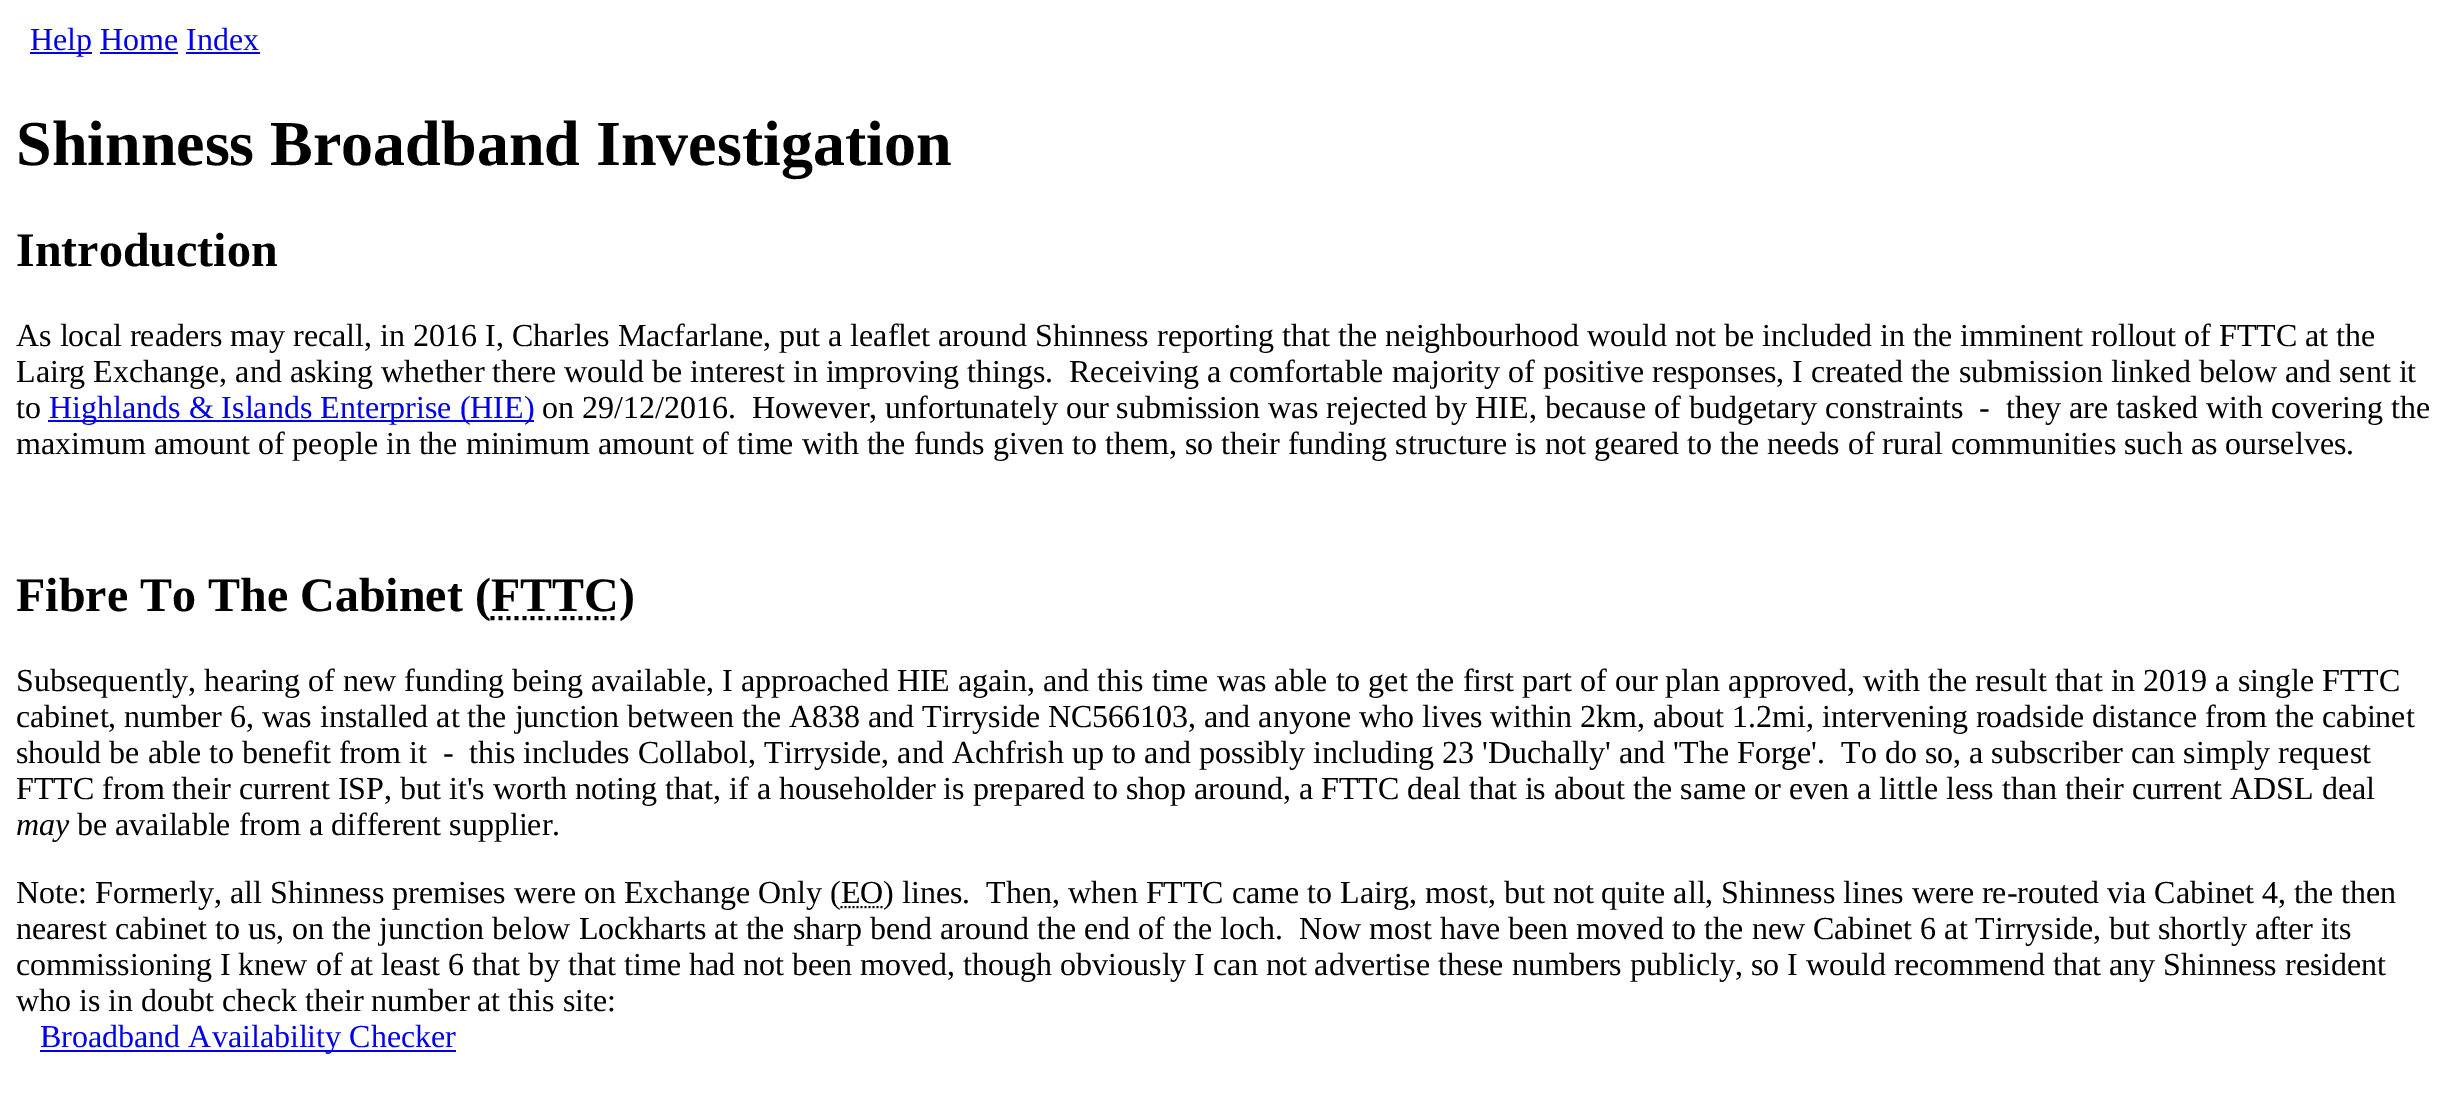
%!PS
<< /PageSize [2448 1099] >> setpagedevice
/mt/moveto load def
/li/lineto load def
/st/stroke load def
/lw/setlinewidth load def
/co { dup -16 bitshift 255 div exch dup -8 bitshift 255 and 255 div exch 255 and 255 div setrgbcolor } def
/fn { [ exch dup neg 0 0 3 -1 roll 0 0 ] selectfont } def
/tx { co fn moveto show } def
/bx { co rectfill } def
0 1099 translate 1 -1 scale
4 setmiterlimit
0 0 2448 1099 16#FFFFFF bx
30 52 62 2 16#0000EE bx
100 52 78 2 16#0000EE bx
186 52 74 2 16#0000EE bx
48 420 486 2 16#0000EE bx
16#000000 co
4 lw
[4 4] 0 setdash
490.5 618 mt 618.5 618 li st
2 lw
[2 2] 0 setdash
840.5 907 mt 883.5 907 li st
40 1050 416 2 16#0000EE bx
(Help Home Index) 30 50 /LiberationSerif-Regular 32 16#0000EE tx
(Shinness Broadband Investigation) 16 165 /LiberationSerif-Bold 64 16#000000 tx
(Introduction) 16 266 /LiberationSerif-Bold 48 16#000000 tx
(As local readers may recall, in 2016 I, Charles Macfarlane, put a leaflet around Shinness reporting that the neighbourhood would not be included in the imminent rollout of FTTC at the) 16 346 /LiberationSerif-Regular 32 16#000000 tx
(Lairg Exchange, and asking whether there would be interest in improving things.  Receiving a comfortable majority of positive responses, I created the submission linked below and sent it) 16 382 /LiberationSerif-Regular 32 16#000000 tx
(to) 16 418 /LiberationSerif-Regular 32 16#000000 tx
(Highlands & Islands Enterprise \(HIE\)) 49 418 /LiberationSerif-Regular 32 16#0000EE tx
(on 29/12/2016.) 542 418 /LiberationSerif-Regular 32 16#000000 tx
(However, unfortunately our submission was rejected by HIE, because of budgetary constraints) 752 418 /LiberationSerif-Regular 32 16#000000 tx
(-) 1979 418 /LiberationSerif-Regular 32 16#000000 tx
(they are tasked with covering the) 2006 418 /LiberationSerif-Regular 32 16#000000 tx
(maximum amount of people in the minimum amount of time with the funds given to them, so their funding structure is not geared to the needs of rural communities such as ourselves.) 16 454 /LiberationSerif-Regular 32 16#000000 tx
(Fibre To The Cabinet \(FTTC\)) 16 611 /LiberationSerif-Bold 48 16#000000 tx
(Subsequently, hearing of new funding being available, I approached HIE again, and this time was able to get the first part of our plan approved, with the result that in 2019 a single FTTC) 16 691 /LiberationSerif-Regular 32 16#000000 tx
(cabinet, number 6, was installed at the junction between the A838 and Tirryside NC566103, and anyone who lives within 2km, about 1.2mi, intervening roadside distance from the cabinet) 16 727 /LiberationSerif-Regular 32 16#000000 tx
(should be able to benefit from it) 16 763 /LiberationSerif-Regular 32 16#000000 tx
(-) 443 763 /LiberationSerif-Regular 32 16#000000 tx
(this includes Collabol, Tirryside, and Achfrish up to and possibly including 23 'Duchally' and 'The Forge'.  To do so, a subscriber can simply request) 469 763 /LiberationSerif-Regular 32 16#000000 tx
(FTTC from their current ISP, but it's worth noting that, if a householder is prepared to shop around, a FTTC deal that is about the same or even a little less than their current ADSL deal) 16 799 /LiberationSerif-Regular 32 16#000000 tx
(may) 16 835 /LiberationSerif-Italic 32 16#000000 tx
(be available from a different supplier.) 77 835 /LiberationSerif-Regular 32 16#000000 tx
(Note: Formerly, all Shinness premises were on Exchange Only \(EO\) lines.  Then, when FTTC came to Lairg, most, but not quite all, Shinness lines were re-routed via Cabinet 4, the then) 16 903 /LiberationSerif-Regular 32 16#000000 tx
(nearest cabinet to us, on the junction below Lockharts at the sharp bend around the end of the loch.  Now most have been moved to the new Cabinet 6 at Tirryside, but shortly after its) 16 939 /LiberationSerif-Regular 32 16#000000 tx
(commissioning I knew of at least 6 that by that time had not been moved, though obviously I can not advertise these numbers publicly, so I would recommend that any Shinness resident) 16 975 /LiberationSerif-Regular 32 16#000000 tx
(who is in doubt check their number at this site:) 16 1011 /LiberationSerif-Regular 32 16#000000 tx
(Broadband Availability Checker) 40 1047 /LiberationSerif-Regular 32 16#0000EE tx
showpage
